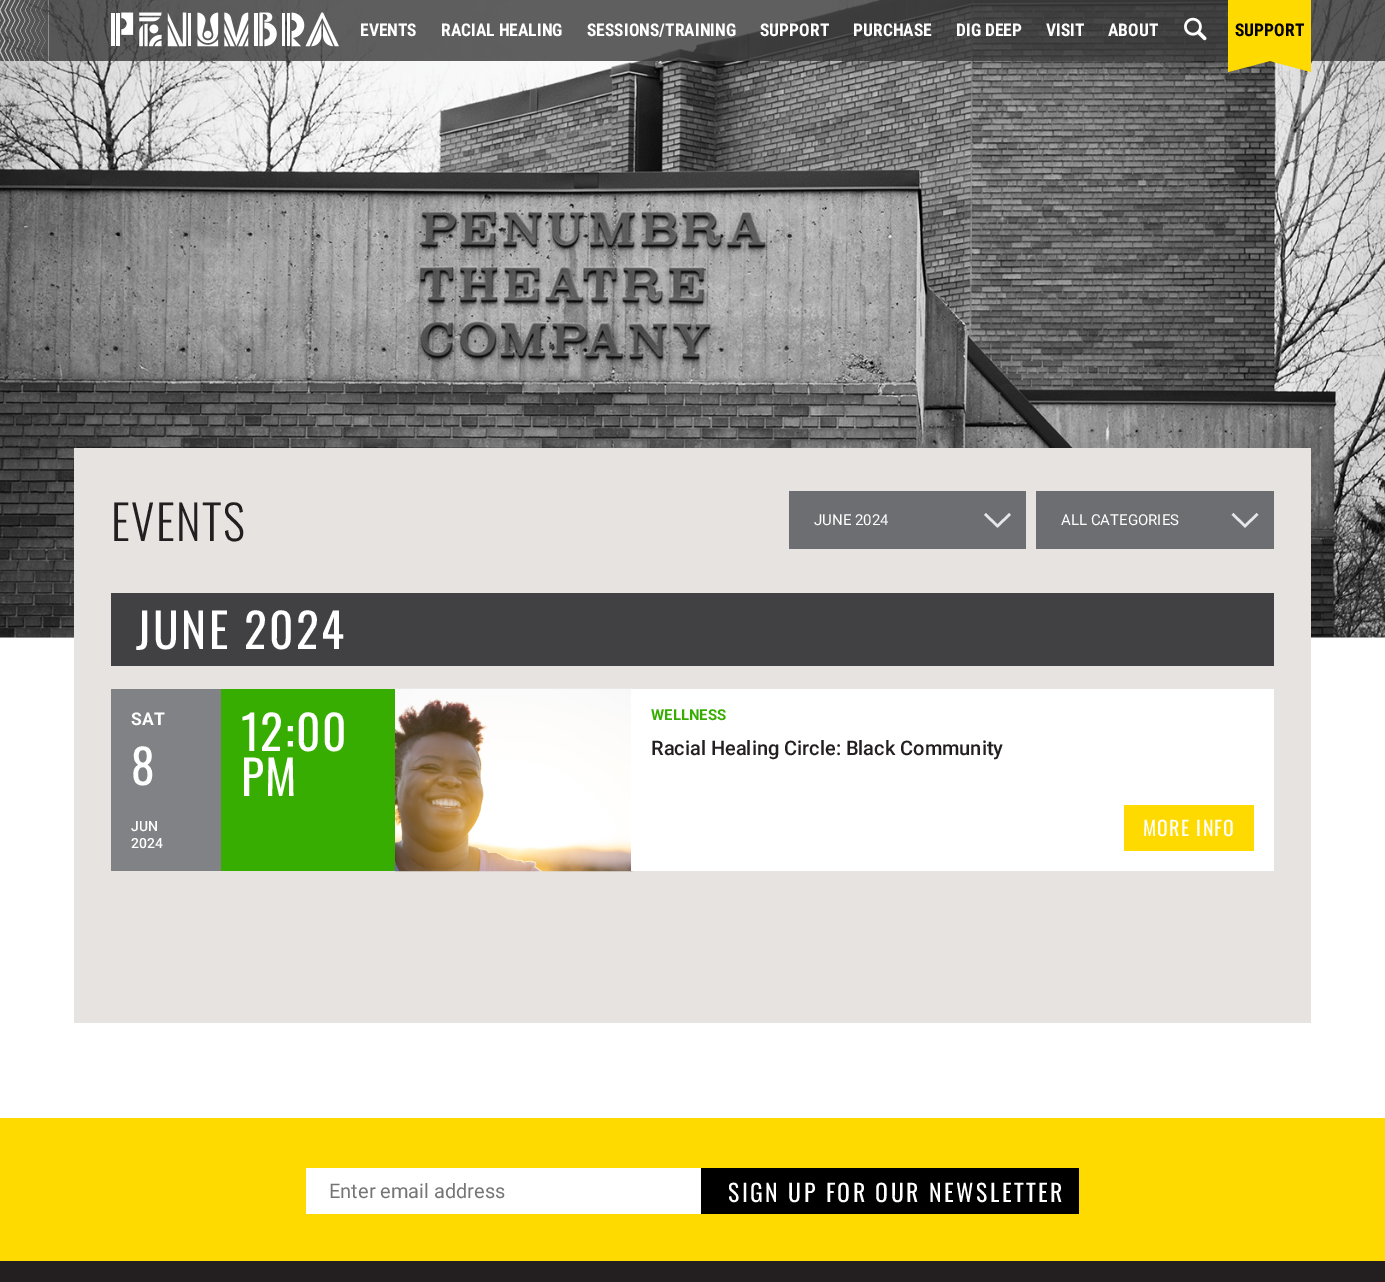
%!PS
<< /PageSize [1385 1282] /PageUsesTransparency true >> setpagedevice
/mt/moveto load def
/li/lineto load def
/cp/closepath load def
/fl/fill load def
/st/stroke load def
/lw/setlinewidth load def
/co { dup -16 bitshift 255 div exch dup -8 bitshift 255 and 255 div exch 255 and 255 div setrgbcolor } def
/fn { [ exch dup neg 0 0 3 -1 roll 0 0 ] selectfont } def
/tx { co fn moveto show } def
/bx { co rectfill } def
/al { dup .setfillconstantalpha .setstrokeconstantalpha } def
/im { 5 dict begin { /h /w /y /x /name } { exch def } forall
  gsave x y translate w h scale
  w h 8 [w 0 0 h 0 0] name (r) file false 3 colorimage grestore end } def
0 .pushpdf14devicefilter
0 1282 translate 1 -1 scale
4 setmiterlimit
0 0 1385 1282 16#231F20 bx
0 637 1385 481 16#FFFFFF bx
(media/4.raw) 0 0 1385 638 im
0.8 al
49 0 1336 61 16#393839 bx
1 al
(media/1.raw) 0 0 49 61 im
(media/2.raw) 111 12 228 35 im
(media/3.raw) 1184 17 23 24 im
16#FFDA00 co
1311 72 mt 1270 61 li 1228 72 li 1228 -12 li 1311 -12 li cp fl
74 448 1237 575 16#E6E3E0 bx
789 491 237 58 16#6D6E71 bx
16#E6E7E8 co
2.5 lw
1010 514 mt 997.5 526 li 985 514 li st
1036 491 238 58 16#6D6E71 bx
16#E6E7E8 co
1257.5 514 mt 1245 526 li 1232.5 514 li st
111 593 1163 73 16#414042 bx
111 689 110 182 16#808285 bx
221 689 174 182 16#36AD00 bx
(media/5.raw) 395 688 238 184 im
631 689 643 182 16#FFFFFF bx
1124 805 130 46 16#FFDA00 bx
0 1118 1385 143 16#FFDA00 bx
306 1168 395 46 16#FFFFFF bx
701 1168 378 46 16#000000 bx
(EVENTS) 360 36 /RobotoCondensed-Bold 17.5 16#FFFFFF tx
(RACIAL HEALING) 441 36 /RobotoCondensed-Bold 17.5 16#FFFFFF tx
(SESSIONS/TRAINING) 587 36 /RobotoCondensed-Bold 17.5 16#FFFFFF tx
(SUPPORT) 760 36 /RobotoCondensed-Bold 17.5 16#FFFFFF tx
(PURCHASE) 853 36 /RobotoCondensed-Bold 17.5 16#FFFFFF tx
(DIG DEEP) 956 36 /RobotoCondensed-Bold 17.5 16#FFFFFF tx
(VISIT) 1046 36 /RobotoCondensed-Bold 17.5 16#FFFFFF tx
(ABOUT) 1108 36 /RobotoCondensed-Bold 17.5 16#FFFFFF tx
(SUPPORT) 1235 36 /RobotoCondensed-Bold 17.5 16#000000 tx
/Oswald-Light 47.5 fn
16#231F20 co
111 541 mt 1.25 0 (EVENTS) ashow
(JUNE 2024) 814 525 /Roboto-Regular 15 16#FFFFFF tx
(ALL CATEGORIES) 1061 525 /Roboto-Regular 15 16#FFFFFF tx
/Oswald-Regular 47.5 fn
136 649 mt 2.5 0 (JUNE 2024) ashow
(SAT) 131 725 /Roboto-Bold 17.5 16#FFFFFF tx
/Oswald-Regular 47.5 fn
131 785 mt 1.5 0 (8) ashow
(JUN) 131 831 /Roboto-Medium 14 16#FFFFFF tx
(2024) 131 848 /Roboto-Medium 14 16#FFFFFF tx
/Oswald-Regular 47.5 fn
241 751 mt 1.5 0 (12:00) ashow
241 796 mt 1.5 0 (PM) ashow
(WELLNESS) 651 720 /Roboto-Bold 15 16#36AD00 tx
(Racial Healing Circle: Black Community) 651 755 /Roboto-Medium 20 16#231F20 tx
/Oswald-Regular 20 fn
16#FFFFFF co
1143 836 mt 1.25 0 (MORE INFO) ashow
(Enter email address) 329 1198 /Roboto-Regular 20 16#757575 tx
/Oswald-Regular 23.75 fn
16#FFFFFF co
728 1202 mt 2.5 0 (SIGN UP FOR OUR NEWSLETTER) ashow
.poppdf14devicefilter showpage
